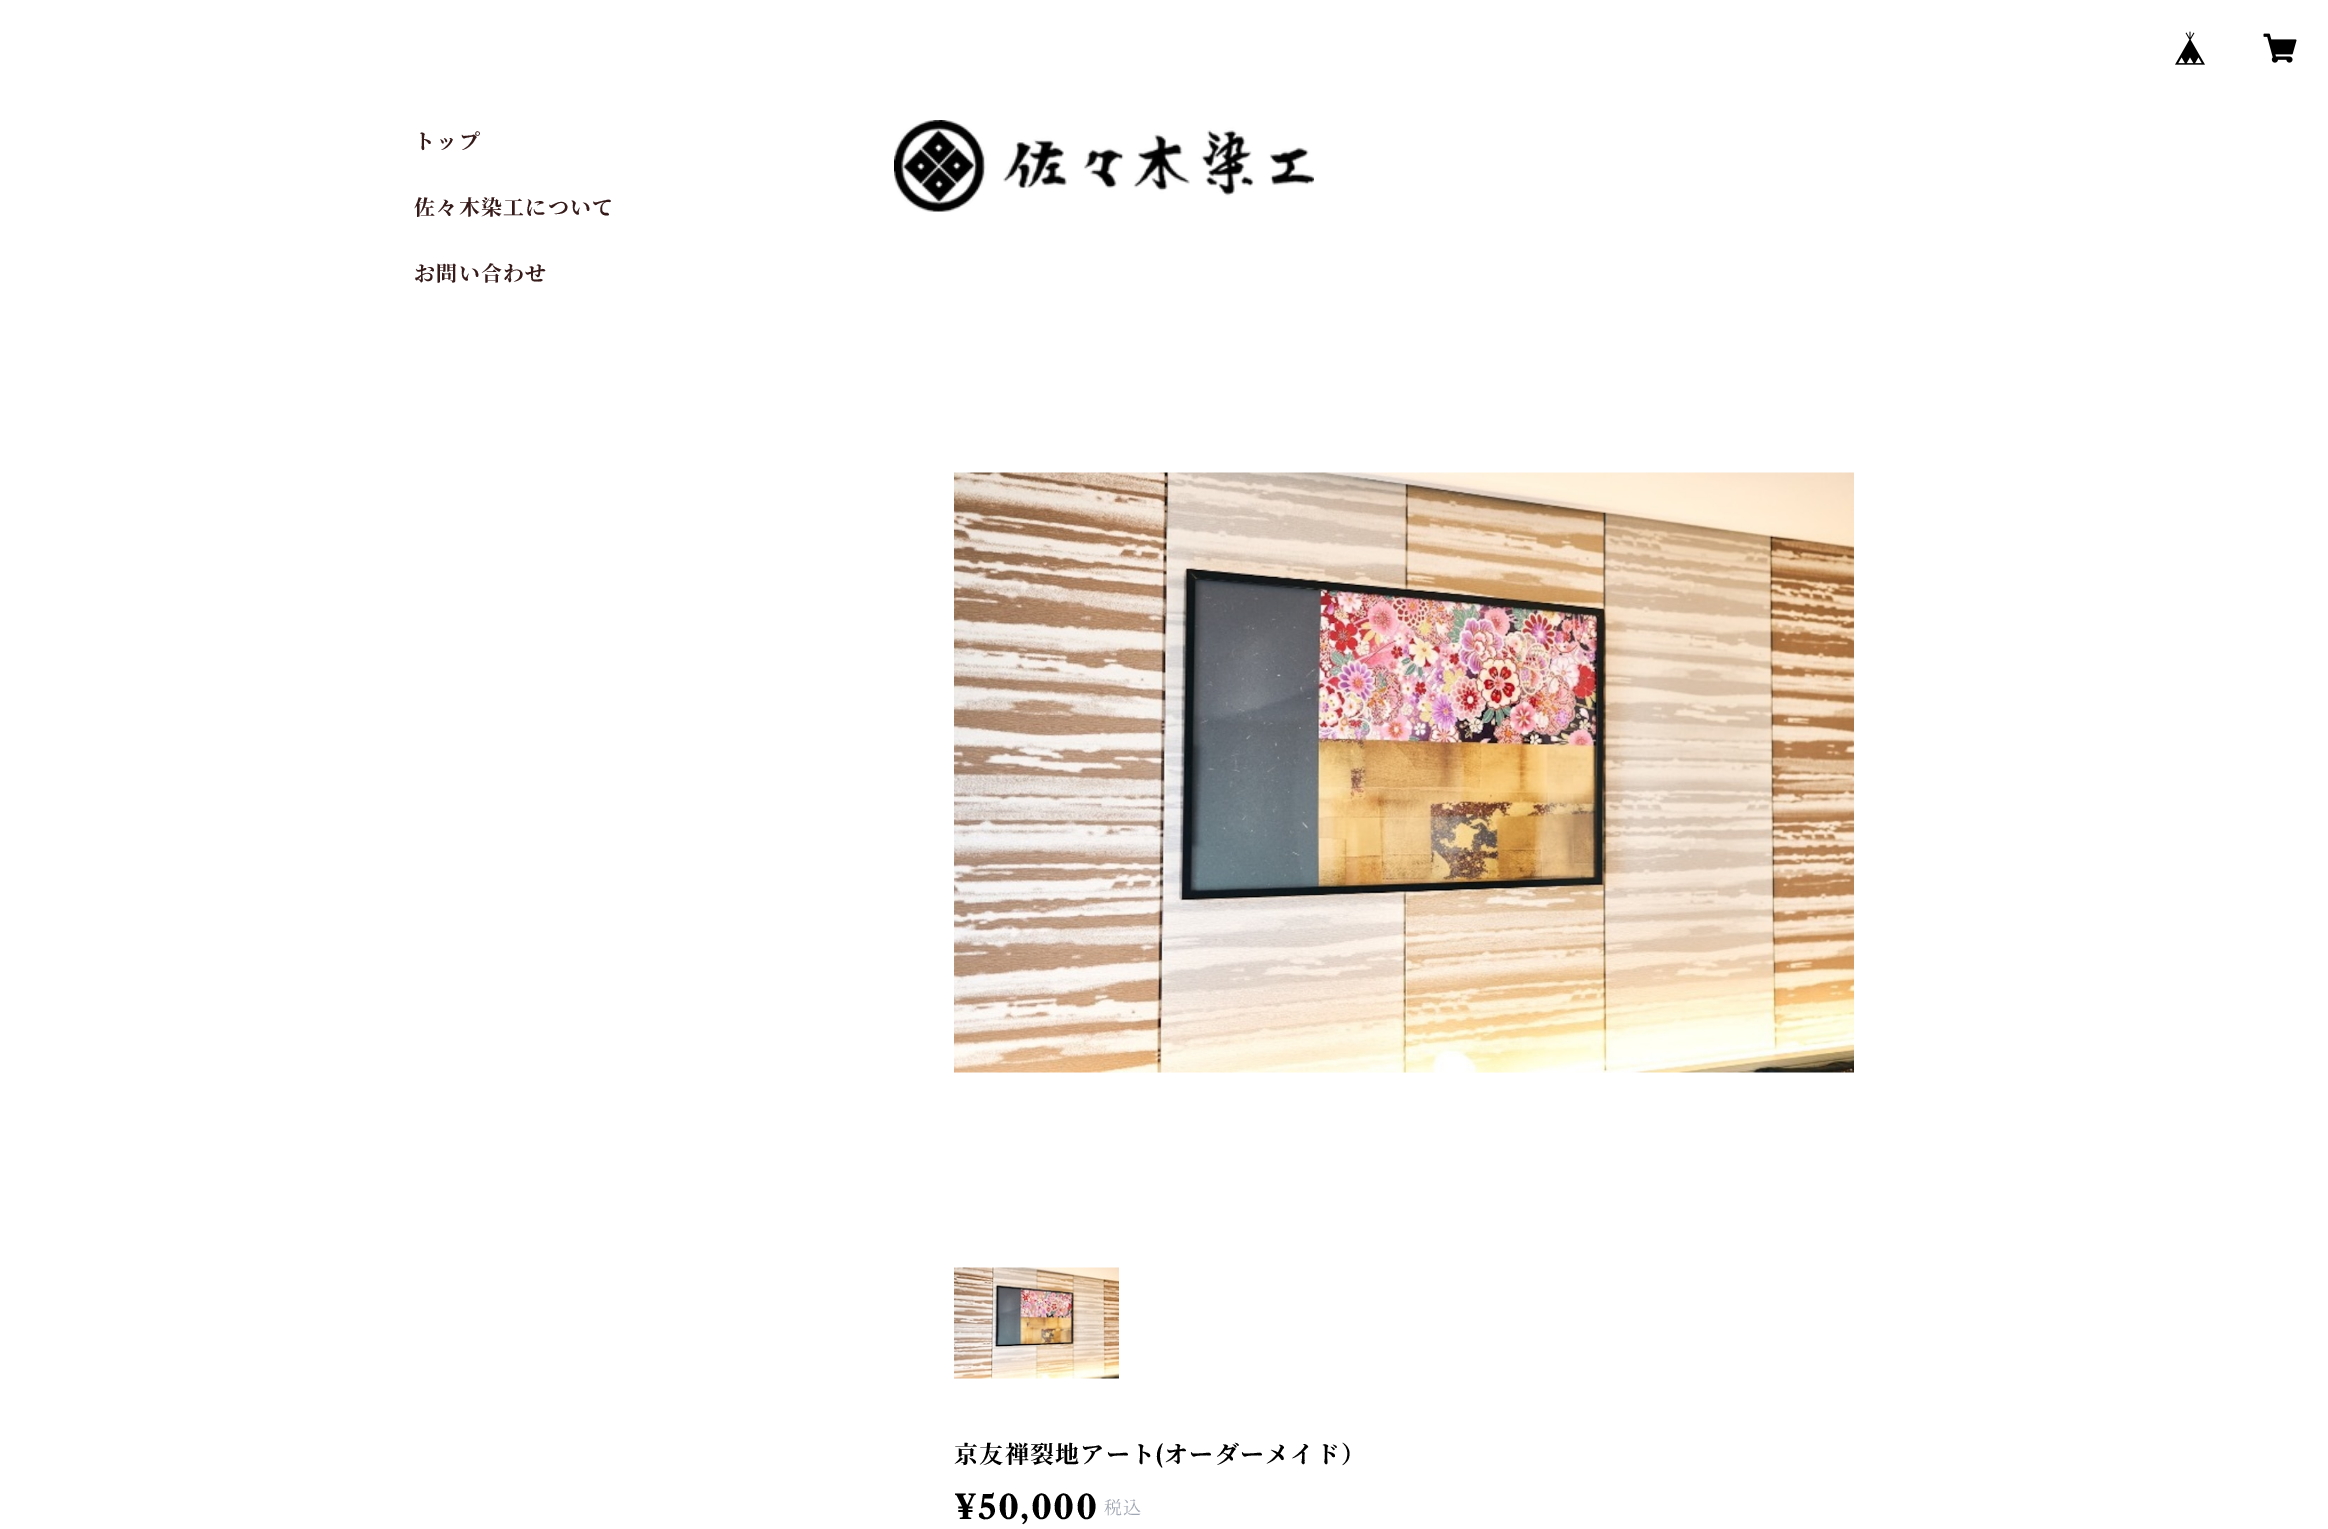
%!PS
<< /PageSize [2328 1529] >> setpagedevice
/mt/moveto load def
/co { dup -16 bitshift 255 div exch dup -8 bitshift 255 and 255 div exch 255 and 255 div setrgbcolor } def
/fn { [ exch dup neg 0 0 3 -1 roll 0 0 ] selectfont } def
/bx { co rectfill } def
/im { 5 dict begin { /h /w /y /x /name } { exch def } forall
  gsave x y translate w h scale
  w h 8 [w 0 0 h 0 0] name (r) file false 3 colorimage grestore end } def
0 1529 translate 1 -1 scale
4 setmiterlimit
0 0 2328 1529 16#FFFFFF bx
(media/1.raw) 2175 31 30 34 im
(media/2.raw) 2263 33 34 30 im
(media/3.raw) 894 120 420 92 im
(media/4.raw) 954 472 900 601 im
(media/5.raw) 954 1267 165 112 im
/NotoSerifJP-Bold 21 fn
16#371B1A co
414 149 mt 1.25 0 (トップ) ashow
414 215 mt 1.25 0 (佐々木染工について) ashow
414 281 mt 1.25 0 (お問い合わせ) ashow
/NotoSerifJP-Bold 24 fn
16#000000 co
954 1463 mt 1.25 0 (京友禅裂地アート) ashow
/LibreCaslonText-Bold 24 fn
1156 1463 mt 1.25 0 (\() ashow
/NotoSerifJP-Bold 24 fn
1164 1463 mt 1.25 0 (オーダーメイド）) ashow
/LibreCaslonText-Bold 33 fn
954 1519 mt 1.25 0 (¥50,000) ashow
/NotoSerifJP-Regular 18 fn
16#A0A7B4 co
1104 1514 mt 1.25 0 (税込) ashow
showpage
